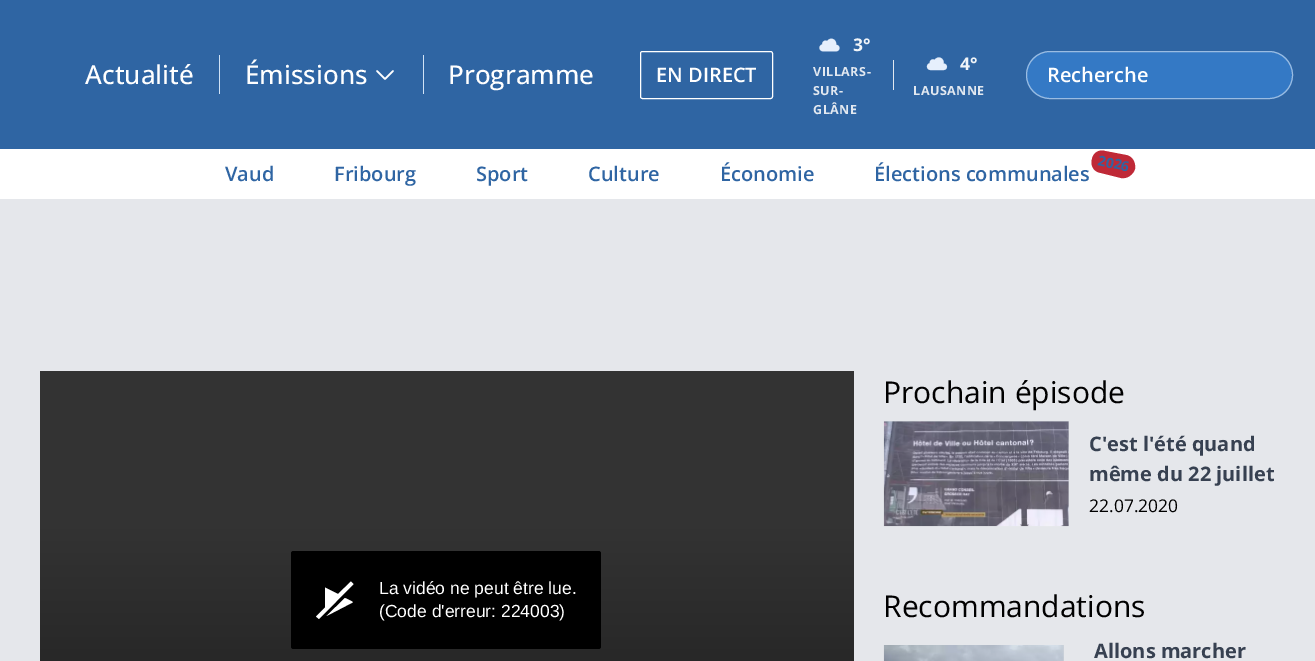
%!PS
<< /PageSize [1315 661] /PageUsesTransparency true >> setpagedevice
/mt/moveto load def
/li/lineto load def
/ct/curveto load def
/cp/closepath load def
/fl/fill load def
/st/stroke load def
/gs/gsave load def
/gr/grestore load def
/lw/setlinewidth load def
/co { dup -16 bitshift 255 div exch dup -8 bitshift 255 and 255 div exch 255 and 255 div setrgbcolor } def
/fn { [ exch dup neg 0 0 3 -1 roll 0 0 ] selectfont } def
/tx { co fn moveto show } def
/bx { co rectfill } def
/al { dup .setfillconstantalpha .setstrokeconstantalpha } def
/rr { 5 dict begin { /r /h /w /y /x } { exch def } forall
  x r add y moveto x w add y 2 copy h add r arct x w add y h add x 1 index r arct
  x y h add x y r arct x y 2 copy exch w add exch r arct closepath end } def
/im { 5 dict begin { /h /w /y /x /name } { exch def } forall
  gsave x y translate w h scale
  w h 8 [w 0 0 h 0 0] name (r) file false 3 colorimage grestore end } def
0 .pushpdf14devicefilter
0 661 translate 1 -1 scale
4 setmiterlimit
0 0 1315 661 16#E5E7EB bx
0 0 1315 149 16#2F65A3 bx
219 55 1 39 16#D0E2F6 bx
16#FFFFFF co
1.6 lw
1 setlinecap
1 setlinejoin
393 71 mt 385 79 li 377 71 li st
423 55 1 39 16#D0E2F6 bx
16#FFFFFF co
1 lw
0 setlinecap
0 setlinejoin
640.5 51.5 132 47 2 rr st
(media/1.raw) 819 38 21 14 im
893 60 1 30 16#E2E8F0 bx
(media/2.raw) 926 57 22 14 im
16#3479C5 co
1026 51 267 48 24 rr fl
0.5 al
16#FFFFFF co
1026.5 51.5 266 47 23.5 rr st
1 al
0 149 1315 50 16#FFFFFF bx
16#BF2937 co
1105 151 mt 1126 155 li 1132 156 1136 162 1135 169 ct 1133 175 1127 179 1121 178 ct 1101 173 li 1094 172 1090 166 1092 159 ct 1093 153 1099 149 1105 151 ct cp fl
40 371 814 158 16#333333 bx
gs 40 529 mt 854 529 li 854 661 li 40 661 li cp clip newpath
<< /ShadingType 2 /ColorSpace /DeviceRGB /Coords [447 529 447 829] /Extend [true true] /Function << /FunctionType 3 /Domain [0 1] /Functions [<< /FunctionType 2 /Domain [0 1] /C0 [.2 .2 .2] /C1 [.122 .122 .122] /N 1 >> << /FunctionType 2 /Domain [0 1] /C0 [.122 .122 .122] /C1 [.122 .122 .122] /N 1 >>] /Bounds [.77] /Encode [0 1 0 1] >> >> shfill gr
16#000000 co
291 551 310 98 2.5 rr fl
16#FFFFFF co
352.5 602.5 mt 326.5 616 li 345 598 li 352 601.5 353.5 602 352.5 602.5 ct cp 351 581.5 mt 338 594 li 325 587.5 li 325 607.5 li 316 616.5 li 319 619 li 353.5 584 li cp fl
884 421 185 105 16#D1D5DB bx
(media/3.raw) 883 421 186 106 im
1063 645 1 16 16#D1D5DB bx
(media/4.raw) 883 645 181 16 im
(Actualité) 85 84 /OpenSans-Medium 26 16#FFFFFF tx
(Émissions) 245 84 /OpenSans-Medium 26 16#FFFFFF tx
(Programme) 448 84 /OpenSans-Medium 26 16#FFFFFF tx
(EN DIRECT) 656 82 /OpenSans-SemiBold 20 16#FFFFFF tx
(3°) 853 51 /OpenSans-Bold 17.5 16#F1F5F9 tx
/OpenSans-Bold 12.5 fn
16#E2E8F0 co
813 76 mt .5 0 (VILLARS-) ashow
813 95 mt .5 0 (SUR-) ashow
813 114 mt .5 0 (GLÂNE) ashow
(4°) 960 70 /OpenSans-Bold 17.5 16#F1F5F9 tx
/OpenSans-Bold 12.5 fn
16#E2E8F0 co
913 95 mt .5 0 (LAUSANNE) ashow
(Recherche) 1047 82 /OpenSans-SemiBold 20 16#FFFFFF tx
(Vaud) 225 181 /OpenSans-SemiBold 20 16#2F65A3 tx
(Fribourg) 334 181 /OpenSans-SemiBold 20 16#2F65A3 tx
(Sport) 476 181 /OpenSans-SemiBold 20 16#2F65A3 tx
(Culture) 588 181 /OpenSans-SemiBold 20 16#2F65A3 tx
(Économie) 720 181 /OpenSans-SemiBold 20 16#2F65A3 tx
(Élections communales) 874 181 /OpenSans-SemiBold 20 16#2F65A3 tx
/OpenSans-Bold 14 fn
gs 1097 165 translate 12 rotate 0 0 mt (2026) show gr
(La vidéo ne peut être lue.) 379 594 /LiberationSans-Regular 17.5 16#FFFFFF tx
(\(Code d'erreur: 224003\)) 379 617 /LiberationSans-Regular 17.5 16#FFFFFF tx
(Prochain épisode) 883 403 /OpenSans-Regular 30 16#000000 tx
(C'est l'été quand) 1089 451 /OpenSans-Bold 20 16#374151 tx
(même du 22 juillet) 1089 481 /OpenSans-Bold 20 16#374151 tx
(22.07.2020) 1089 512 /OpenSans-Regular 17.5 16#000000 tx
(Recommandations) 883 617 /OpenSans-Regular 30 16#000000 tx
(Allons marcher) 1094 658 /OpenSans-Bold 20 16#374151 tx
.poppdf14devicefilter showpage
